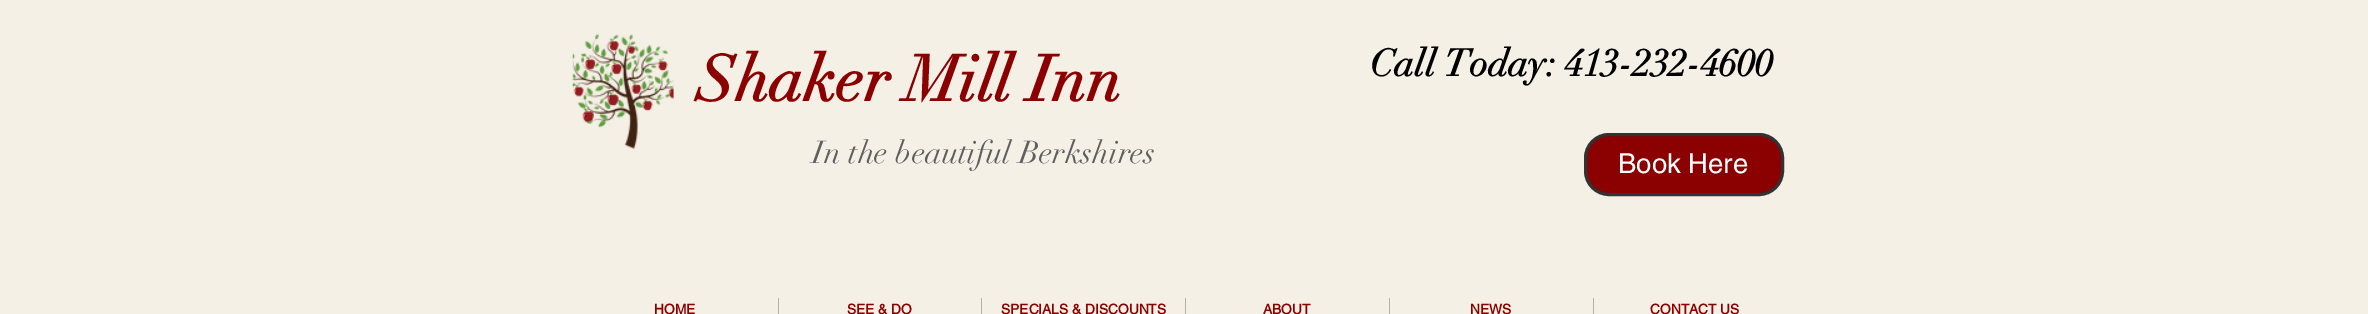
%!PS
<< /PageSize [2368 314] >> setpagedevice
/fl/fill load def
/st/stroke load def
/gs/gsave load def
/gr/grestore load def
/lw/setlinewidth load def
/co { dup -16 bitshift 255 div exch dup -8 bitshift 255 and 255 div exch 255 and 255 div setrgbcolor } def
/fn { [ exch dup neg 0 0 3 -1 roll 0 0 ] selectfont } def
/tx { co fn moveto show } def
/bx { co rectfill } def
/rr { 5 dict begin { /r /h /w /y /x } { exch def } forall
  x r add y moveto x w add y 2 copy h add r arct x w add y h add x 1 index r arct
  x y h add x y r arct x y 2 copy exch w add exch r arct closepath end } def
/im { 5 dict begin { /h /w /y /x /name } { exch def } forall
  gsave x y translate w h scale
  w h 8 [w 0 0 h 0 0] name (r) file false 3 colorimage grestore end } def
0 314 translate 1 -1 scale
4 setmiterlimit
0 0 2368 314 16#F5F0E6 bx
(media/1.raw) 572 33 102 116 im
16#8B0000 co
1585.5 134.5 197 60 23.5 rr gs fl gr
16#323232 co
3 lw
st
778 298 1 16 16#B4B1AB bx
981 298 1 16 16#B4B1AB bx
1185 298 1 16 16#B4B1AB bx
1389 298 1 16 16#B4B1AB bx
1593 298 1 16 16#B4B1AB bx
(Shaker Mill Inn) 697 101 /didot-Bold 63.75 16#8B0000 tx
(Call Today: 413-232-4600) 1370 76 /didot-Bold 37.5 16#000000 tx
(In the beautiful Berkshires) 812 163 /didot-Regular 31.25 16#605E5E tx
(Book Here) 1618 173 /helvetica-Regular 27.5 16#FFFFFF tx
(HOME) 654 314 /helvetica-Bold 13.75 16#8B0000 tx
(SEE & DO) 847 314 /helvetica-Bold 13.75 16#8B0000 tx
(SPECIALS & DISCOUNTS) 1001 314 /helvetica-Bold 13.75 16#8B0000 tx
(ABOUT) 1263 314 /helvetica-Bold 13.75 16#8B0000 tx
(NEWS) 1470 314 /helvetica-Bold 13.75 16#8B0000 tx
(CONTACT US) 1650 314 /helvetica-Bold 13.75 16#8B0000 tx
showpage
